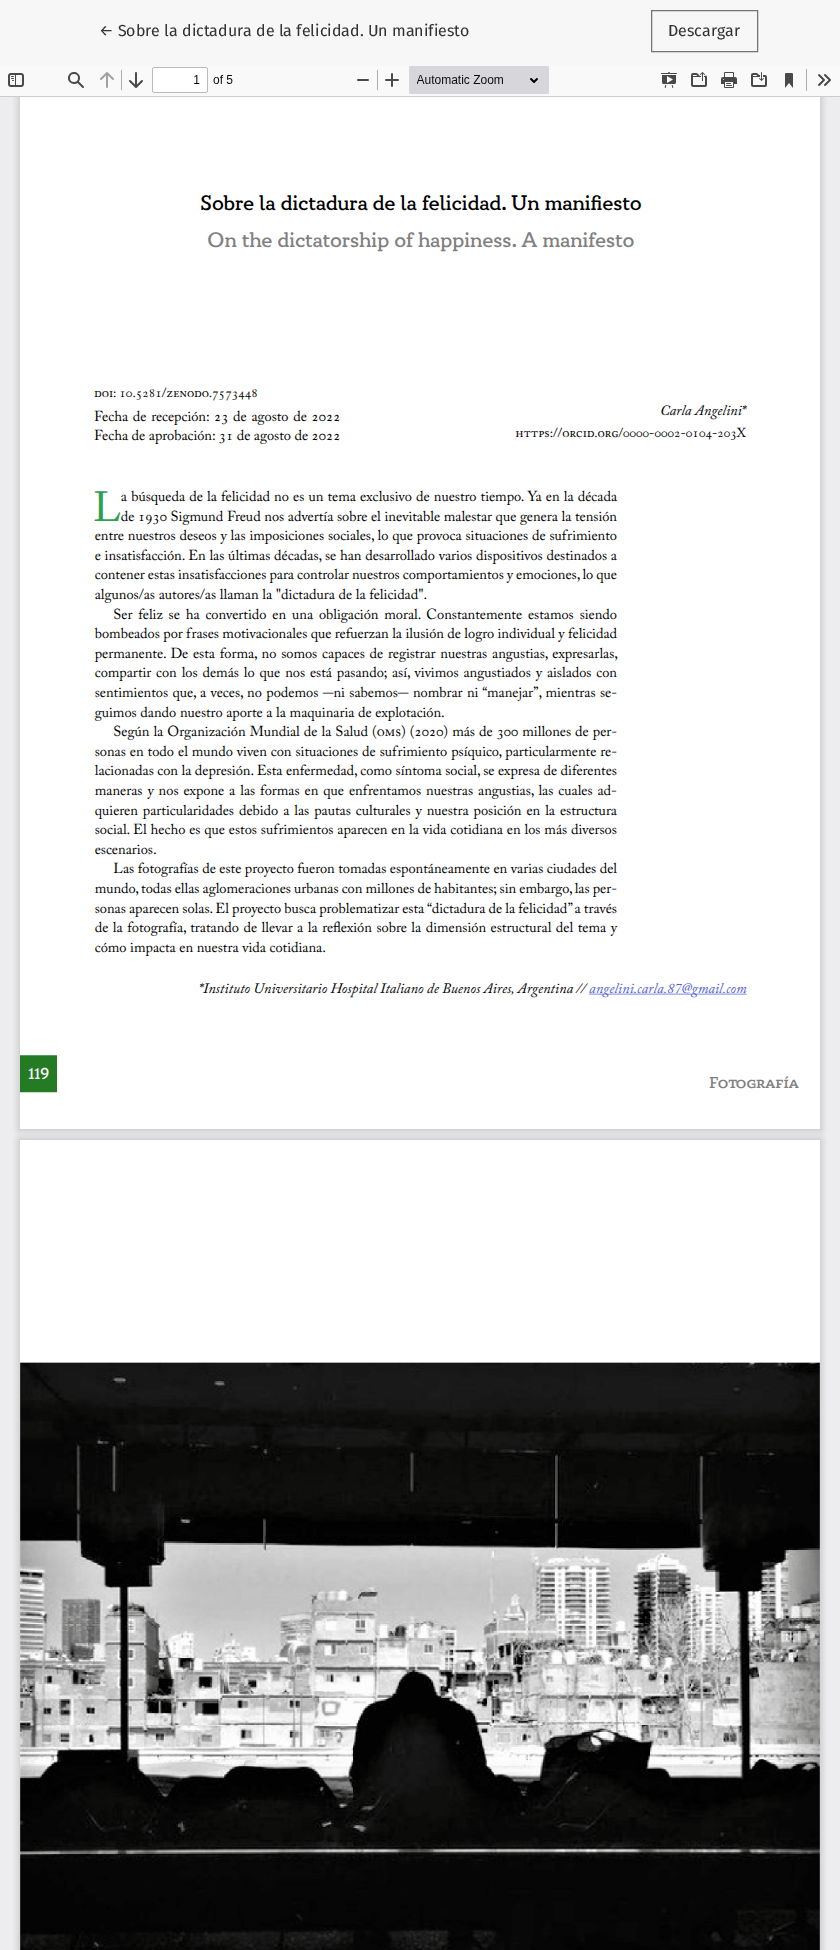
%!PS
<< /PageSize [840 1950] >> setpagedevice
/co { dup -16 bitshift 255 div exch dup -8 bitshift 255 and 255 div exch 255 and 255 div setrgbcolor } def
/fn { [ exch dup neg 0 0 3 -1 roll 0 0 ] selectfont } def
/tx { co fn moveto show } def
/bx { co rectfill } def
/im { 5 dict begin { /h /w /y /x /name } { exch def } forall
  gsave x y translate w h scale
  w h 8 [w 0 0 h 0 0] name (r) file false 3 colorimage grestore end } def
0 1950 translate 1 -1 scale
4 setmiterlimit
0 0 840 1950 16#F7F7F7 bx
16#757575 co
651.5 10.5 106 41 rectstroke
(media/1.raw) 0 66 840 1884 im
(← Sobre la dictadura de la felicidad. Un manifiesto) 99 36 /FiraSans-Regular 16 16#333333 tx
(Descargar) 668 36 /FiraSans-Regular 16 16#333333 tx
showpage
